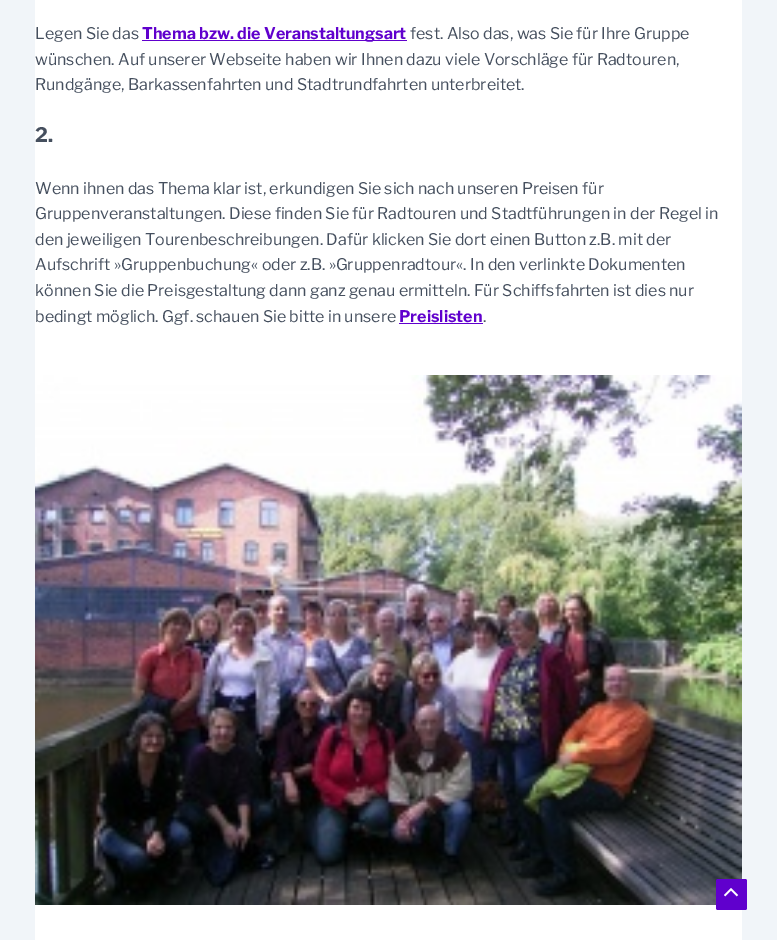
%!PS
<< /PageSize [777 940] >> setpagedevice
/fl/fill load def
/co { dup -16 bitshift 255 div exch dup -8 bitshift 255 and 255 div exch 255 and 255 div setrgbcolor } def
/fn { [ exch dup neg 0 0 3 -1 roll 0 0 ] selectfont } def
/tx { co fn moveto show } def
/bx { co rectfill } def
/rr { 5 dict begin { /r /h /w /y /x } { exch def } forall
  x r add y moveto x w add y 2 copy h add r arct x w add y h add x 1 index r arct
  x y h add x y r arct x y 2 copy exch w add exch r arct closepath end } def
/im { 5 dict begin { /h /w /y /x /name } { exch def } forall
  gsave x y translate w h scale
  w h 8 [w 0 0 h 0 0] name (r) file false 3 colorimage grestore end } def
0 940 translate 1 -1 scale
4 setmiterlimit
0 0 777 940 16#F1F5F9 bx
35 0 707 940 16#FFFFFF bx
142 40 265 1 16#6000CD bx
399 323 84 1 16#6000CD bx
(media/1.raw) 35 375 707 530 im
716 879 31 31 2 rr fl
(media/2.raw) 724 888 15 9 im
(Legen Sie das) 35 39 /LibreFranklin-Regular 16 16#454F5E tx
(Thema bzw. die Veranstaltungsart) 142 39 /LibreFranklin-Bold 16 16#6000CD tx
(fest. Also das, was Sie für Ihre Gruppe) 410 39 /LibreFranklin-Regular 16 16#454F5E tx
(wünschen. Auf unserer Webseite haben wir Ihnen dazu viele Vorschläge für Radtouren,) 35 65 /LibreFranklin-Regular 16 16#454F5E tx
(Rundgänge, Barkassenfahrten und Stadtrundfahrten unterbreitet.) 35 90 /LibreFranklin-Regular 16 16#454F5E tx
(2.) 35 142 /LibreFranklin-Bold 20 16#454F5E tx
(Wenn ihnen das Thema klar ist, erkundigen Sie sich nach unseren Preisen für) 35 194 /LibreFranklin-Regular 16 16#454F5E tx
(Gruppenveranstaltungen. Diese finden Sie für Radtouren und Stadtführungen in der Regel in) 35 219 /LibreFranklin-Regular 16 16#454F5E tx
(den jeweiligen Tourenbeschreibungen. Dafür klicken Sie dort einen Button z.B. mit der) 35 245 /LibreFranklin-Regular 16 16#454F5E tx
(Aufschrift »Gruppenbuchung« oder z.B. »Gruppenradtour«. In den verlinkte Dokumenten) 35 270 /LibreFranklin-Regular 16 16#454F5E tx
(können Sie die Preisgestaltung dann ganz genau ermitteln. Für Schiffsfahrten ist dies nur) 35 296 /LibreFranklin-Regular 16 16#454F5E tx
(bedingt möglich. Ggf. schauen Sie bitte in unsere) 35 322 /LibreFranklin-Regular 16 16#454F5E tx
(Preislisten) 399 322 /LibreFranklin-Bold 16 16#6000CD tx
(.) 483 322 /LibreFranklin-Regular 16 16#454F5E tx
showpage
